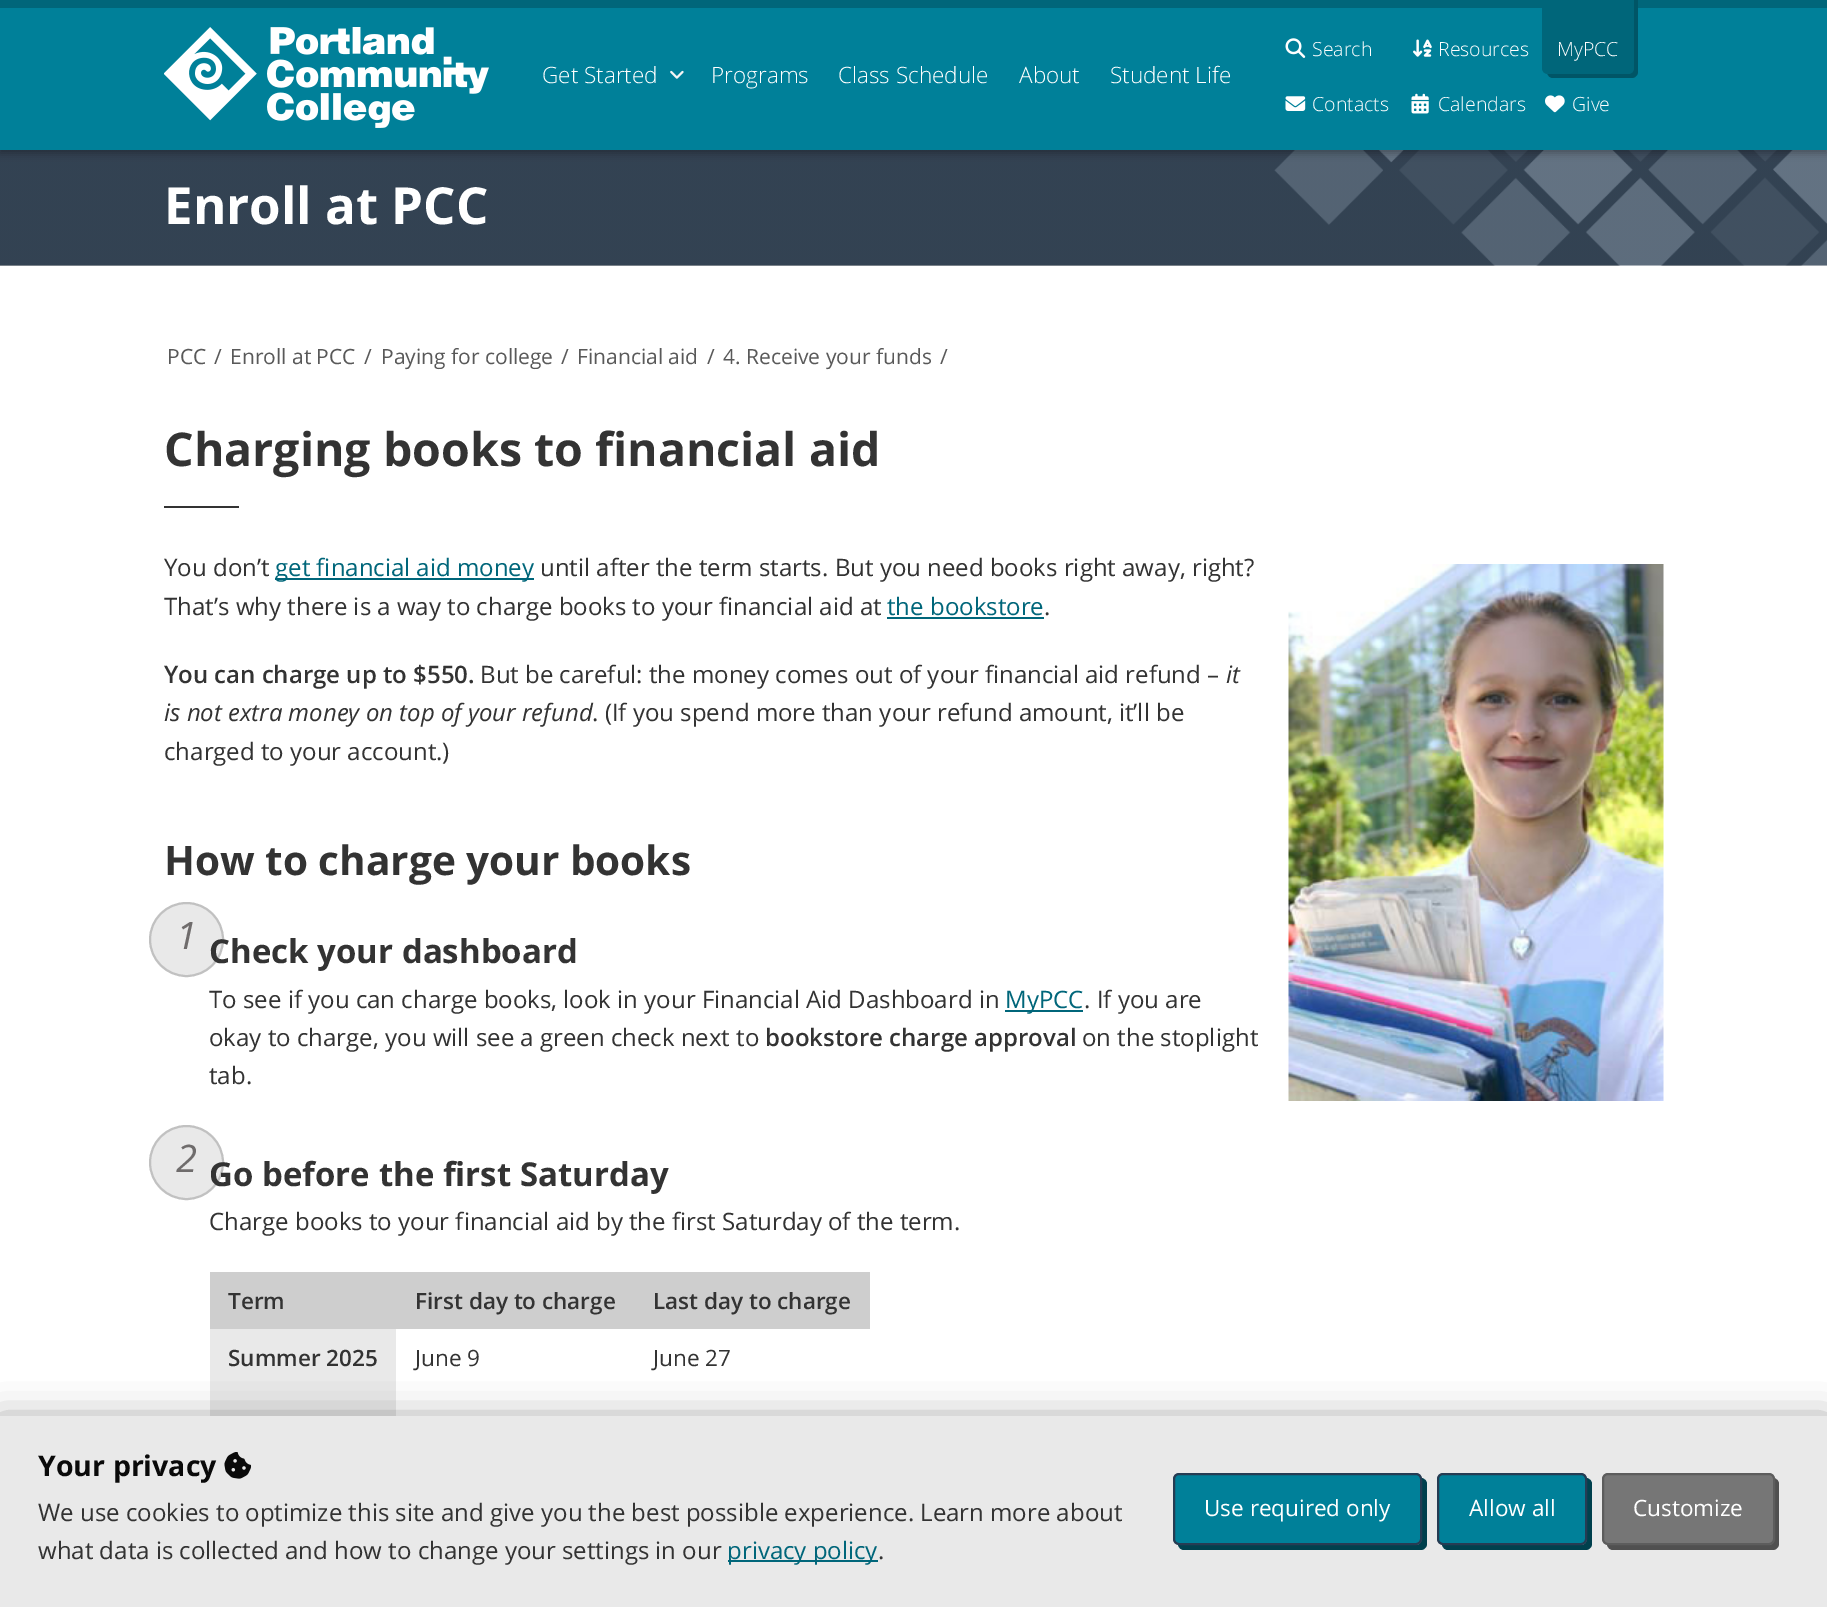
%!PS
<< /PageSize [1827 1607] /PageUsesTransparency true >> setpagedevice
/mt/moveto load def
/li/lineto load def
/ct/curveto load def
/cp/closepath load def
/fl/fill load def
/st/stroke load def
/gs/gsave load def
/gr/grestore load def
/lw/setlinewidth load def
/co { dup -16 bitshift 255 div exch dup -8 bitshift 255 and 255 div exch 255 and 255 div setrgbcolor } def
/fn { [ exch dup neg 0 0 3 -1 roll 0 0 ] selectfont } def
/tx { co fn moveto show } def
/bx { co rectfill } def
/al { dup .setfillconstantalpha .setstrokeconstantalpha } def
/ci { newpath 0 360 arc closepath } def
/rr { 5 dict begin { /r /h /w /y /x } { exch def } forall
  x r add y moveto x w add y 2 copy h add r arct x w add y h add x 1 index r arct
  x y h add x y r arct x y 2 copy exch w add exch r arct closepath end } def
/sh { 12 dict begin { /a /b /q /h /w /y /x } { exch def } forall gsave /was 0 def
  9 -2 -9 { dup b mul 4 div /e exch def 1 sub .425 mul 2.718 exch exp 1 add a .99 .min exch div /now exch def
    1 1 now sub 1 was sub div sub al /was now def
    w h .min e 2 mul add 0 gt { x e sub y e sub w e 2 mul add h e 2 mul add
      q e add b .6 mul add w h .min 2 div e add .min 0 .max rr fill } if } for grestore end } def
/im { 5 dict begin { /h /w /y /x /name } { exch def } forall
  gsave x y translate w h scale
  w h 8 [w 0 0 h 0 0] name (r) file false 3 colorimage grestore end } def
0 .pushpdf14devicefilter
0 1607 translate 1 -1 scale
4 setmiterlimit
0 0 1827 1607 16#FFFFFF bx
(media/8.raw) 0 150 1827 116 im
16#000000 co
0 3 1827 150 0 4 .3 sh
0 8 1827 142 16#008099 bx
0 0 1827 8 16#00667A bx
(media/1.raw) 164 27 325 101 im
(media/2.raw) 670 70 14 9 im
(media/3.raw) 1285 38 21 20 im
(media/4.raw) 1413 39 19 18 im
16#005566 co
1547 73 mt 1548 76 1550 78 1553 78 ct 1632 78 li 1635 78 1638 75 1638 72 ct 1638 0 li 1634 0 li 1634 56 li 1634 61 1636 73 1628 74 ct cp fl
16#00667A co
1542 -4 mt 1634 -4 li 1634 68 li 1634 71.5 1631.5 74 1628 74 ct 1548 74 li 1544.5 74 1542 71.5 1542 68 ct cp fl
(media/5.raw) 1285 96 21 15 im
(media/6.raw) 1411 93 18 21 im
(media/7.raw) 1545 95 20 18 im
164 506 75 2 16#333333 bx
275 578 259 2 16#00667A bx
(media/9.raw) 1288 564 376 537 im
887 617 157 2 16#00667A bx
16#E9E9E9 co
186.5 939.5 36.5 ci gs fl gr
16#C1C1C1 co
2 lw
st
1005 1010 78 2 16#00667A bx
16#E9E9E9 co
186.5 1162.5 36.5 ci gs fl gr
16#C1C1C1 co
st
210 1272 660 57 16#CECECE bx
210 1329 186 87 16#E9E9E9 bx
16#000000 co
0 1424 1827 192 0 19 .5 sh
0 1416 1827 191 16#E9E9E9 bx
(media/10.raw) 224 1452 28 27 im
728 1560 150 2 16#00667A bx
16#00404D co
1178 1545 mt 1179 1548 1181 1550 1184 1550 ct 1421 1550 li 1424 1550 1427 1547 1427 1544 ct 1427 1484 li 1427 1481 1425 1479 1422 1478 ct 1422 1529 li 1422 1533 1424 1545 1416 1545 ct cp fl
16#008099 co
1174 1474 247 70 5 rr gs fl gr
16#263C53 co
st
16#00404D co
1442 1545 mt 1443 1548 1445 1550 1448 1550 ct 1586 1550 li 1589 1550 1592 1547 1592 1544 ct 1592 1484 li 1592 1481 1590 1479 1587 1478 ct 1587 1529 li 1587 1534 1589 1545 1581 1545 ct cp fl
16#008099 co
1438 1474 148 70 5 rr gs fl gr
16#263C53 co
st
16#505050 co
1607 1545 mt 1608 1548 1610 1550 1613 1550 ct 1773 1550 li 1776 1550 1779 1547 1779 1544 ct 1779 1484 li 1779 1481 1777 1479 1774 1478 ct 1774 1529 li 1774 1534 1777 1545 1768 1545 ct cp fl
16#767676 co
1603 1474 171 70 5 rr gs fl gr
16#5D5D5D co
st
(Get Started) 542 83 /OpenSans-Light 22.5 16#FFFFFF tx
(Programs) 711 83 /OpenSans-Light 22.5 16#FFFFFF tx
(Class Schedule) 838 83 /OpenSans-Light 22.5 16#FFFFFF tx
(About) 1019 83 /OpenSans-Light 22.5 16#FFFFFF tx
(Student Life) 1110 83 /OpenSans-Light 22.5 16#FFFFFF tx
(Search) 1312 56 /OpenSans-Light 19.5 16#FFFFFF tx
(Resources) 1438 56 /OpenSans-Light 19.5 16#FFFFFF tx
(MyPCC) 1557 56 /OpenSans-Light 19.5 16#FFFFFF tx
(Contacts) 1312 111 /OpenSans-Light 19.5 16#FFFFFF tx
(Calendars) 1438 111 /OpenSans-Light 19.5 16#FFFFFF tx
(Give) 1572 111 /OpenSans-Light 19.5 16#FFFFFF tx
(Enroll at PCC) 164 224 /OpenSans-Bold 51 16#FFFFFF tx
(PCC) 167 364 /OpenSans-Regular 21 16#595959 tx
(/) 214 364 /OpenSans-Regular 21 16#595959 tx
(Enroll at PCC) 230 364 /OpenSans-Regular 21 16#595959 tx
(/) 364 364 /OpenSans-Regular 21 16#595959 tx
(Paying for college) 381 364 /OpenSans-Regular 21 16#595959 tx
(/) 561 364 /OpenSans-Regular 21 16#595959 tx
(Financial aid) 577 364 /OpenSans-Regular 21 16#595959 tx
(/) 707 364 /OpenSans-Regular 21 16#595959 tx
(4. Receive your funds) 723 364 /OpenSans-Regular 21 16#595959 tx
(/) 940 364 /OpenSans-Regular 21 16#595959 tx
(Charging books to financial aid) 164 466 /OpenSans-Bold 46.5 16#333333 tx
(You don’t) 164 576 /OpenSans-Regular 24 16#333333 tx
(get financial aid money) 275 576 /OpenSans-Regular 24 16#00667A tx
(until after the term starts. But you need books right away, right?) 540 576 /OpenSans-Regular 24 16#333333 tx
(That’s why there is a way to charge books to your financial aid at) 164 615 /OpenSans-Regular 24 16#333333 tx
(the bookstore) 887 615 /OpenSans-Regular 24 16#00667A tx
(.) 1044 615 /OpenSans-Regular 24 16#333333 tx
(You can charge up to $550.) 164 683 /OpenSans-SemiBold 24 16#333333 tx
(But be careful: the money comes out of your financial aid refund –) 480 683 /OpenSans-Regular 24 16#333333 tx
(it) 1226 683 /OpenSans-Italic 24 16#333333 tx
(is not extra money on top of your refund) 164 721 /OpenSans-Italic 24 16#333333 tx
(. \(If you spend more than your refund amount, it’ll be) 592 721 /OpenSans-Regular 24 16#333333 tx
(charged to your account.\)) 164 760 /OpenSans-Regular 24 16#333333 tx
(How to charge your books) 164 875 /OpenSans-Bold 40.5 16#333333 tx
(1) 176 949 /OpenSans-Italic 38 16#6F6C6C tx
(Check your dashboard) 209 963 /OpenSans-Bold 33 16#333333 tx
(To see if you can charge books, look in your Financial Aid Dashboard in) 209 1008 /OpenSans-Regular 24 16#333333 tx
(MyPCC) 1005 1008 /OpenSans-Regular 24 16#00667A tx
(. If you are) 1084 1008 /OpenSans-Regular 24 16#333333 tx
(okay to charge, you will see a green check next to) 209 1046 /OpenSans-Regular 24 16#333333 tx
(bookstore charge approval) 765 1046 /OpenSans-SemiBold 24 16#333333 tx
(on the stoplight) 1082 1046 /OpenSans-Regular 24 16#333333 tx
(tab.) 209 1084 /OpenSans-Regular 24 16#333333 tx
(2) 176 1172 /OpenSans-Italic 38 16#6F6C6C tx
(Go before the first Saturday) 209 1186 /OpenSans-Bold 33 16#333333 tx
(Charge books to your financial aid by the first Saturday of the term.) 209 1230 /OpenSans-Regular 24 16#333333 tx
(Term) 228 1309 /OpenSans-SemiBold 22.5 16#333333 tx
(First day to charge) 415 1309 /OpenSans-SemiBold 22.5 16#333333 tx
(Last day to charge) 653 1309 /OpenSans-SemiBold 22.5 16#333333 tx
(Summer 2025) 228 1366 /OpenSans-SemiBold 22.5 16#333333 tx
(June 9) 415 1366 /OpenSans-Regular 22.5 16#333333 tx
(June 27) 653 1366 /OpenSans-Regular 22.5 16#333333 tx
(Your privacy) 38 1476 /OpenSans-Bold 28.5 16#0A0A0A tx
(We use cookies to optimize this site and give you the best possible experience. Learn more about) 38 1521 /OpenSans-Regular 24 16#333333 tx
(what data is collected and how to change your settings in our) 38 1559 /OpenSans-Regular 24 16#333333 tx
(privacy policy) 727 1559 /OpenSans-Regular 24 16#00667A tx
(.) 878 1559 /OpenSans-Regular 24 16#333333 tx
(Use required only) 1204 1516 /OpenSans-Regular 22.5 16#FFFFFF tx
(Allow all) 1469 1516 /OpenSans-Regular 22.5 16#FFFFFF tx
(Customize) 1633 1516 /OpenSans-Regular 22.5 16#FFFFFF tx
.poppdf14devicefilter showpage
